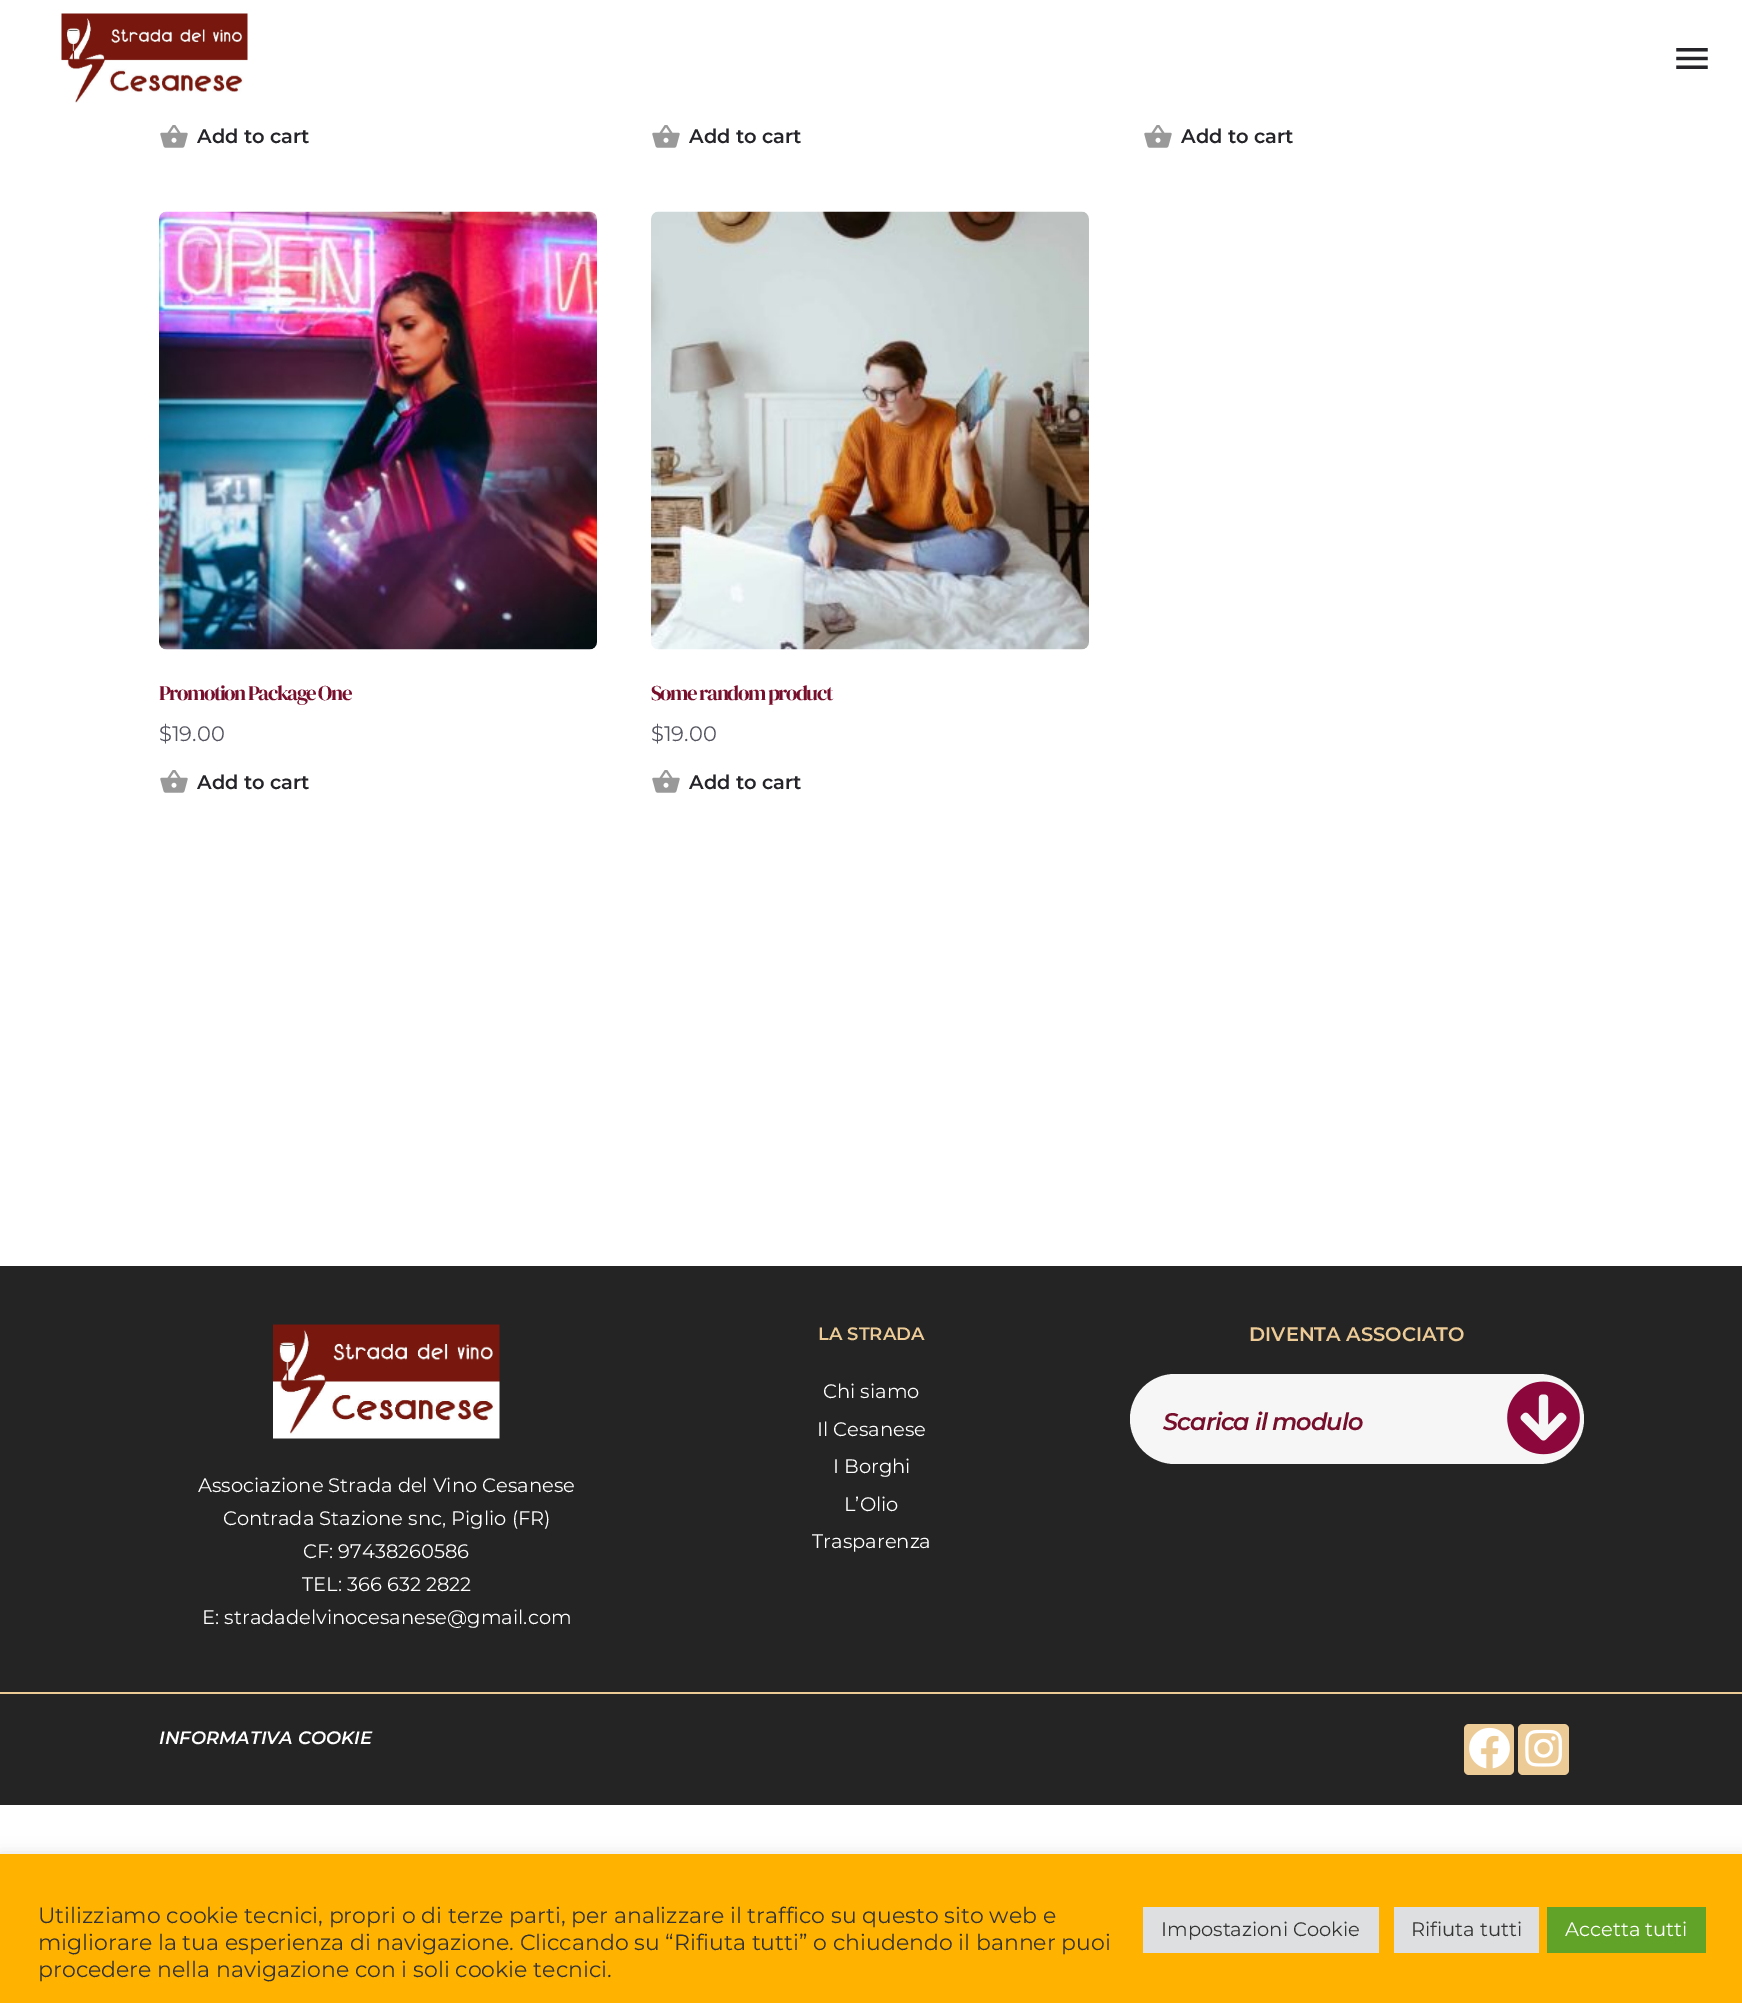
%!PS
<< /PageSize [1742 2003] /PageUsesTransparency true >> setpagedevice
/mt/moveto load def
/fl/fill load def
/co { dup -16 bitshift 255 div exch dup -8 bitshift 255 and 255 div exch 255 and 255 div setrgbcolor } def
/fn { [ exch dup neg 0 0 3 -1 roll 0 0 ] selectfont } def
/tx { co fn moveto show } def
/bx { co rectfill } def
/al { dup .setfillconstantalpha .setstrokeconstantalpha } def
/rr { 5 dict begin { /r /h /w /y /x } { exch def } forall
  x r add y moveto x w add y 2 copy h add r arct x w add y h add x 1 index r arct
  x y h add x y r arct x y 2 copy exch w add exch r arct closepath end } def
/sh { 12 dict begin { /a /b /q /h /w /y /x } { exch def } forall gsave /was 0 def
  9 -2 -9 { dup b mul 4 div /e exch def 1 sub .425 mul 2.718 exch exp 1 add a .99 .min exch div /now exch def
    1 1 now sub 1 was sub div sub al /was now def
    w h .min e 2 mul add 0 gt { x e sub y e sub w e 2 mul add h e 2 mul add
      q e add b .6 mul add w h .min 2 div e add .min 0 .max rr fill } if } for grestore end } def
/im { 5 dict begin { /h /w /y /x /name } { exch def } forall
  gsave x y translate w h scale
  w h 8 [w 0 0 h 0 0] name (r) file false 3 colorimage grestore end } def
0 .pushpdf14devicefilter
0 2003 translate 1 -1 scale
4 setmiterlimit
0 0 1742 2003 16#FFFFFF bx
(media/1.raw) 61 13 187 90 im
(media/2.raw) 1676 48 32 21 im
(media/3.raw) 160 125 28 23 im
(media/3.raw) 652 125 28 23 im
(media/3.raw) 1144 125 28 23 im
(media/4.raw) 159 211 438 439 im
(media/3.raw) 160 770 28 23 im
(media/5.raw) 651 211 438 439 im
(media/3.raw) 652 770 28 23 im
0 1266 1742 426 16#242424 bx
16#F6F6F6 co
1130 1374 454 90 45 rr fl
(media/6.raw) 1507 1381 73 74 im
(media/7.raw) 273 1324 227 115 im
0 1694 1742 111 16#242424 bx
0 1692 1742 2 16#EDCB96 bx
1464 1724 50 51 5 rr fl
(media/8.raw) 1469 1727 41 42 im
1518 1724 51 51 5 rr fl
(media/9.raw) 1525 1729 37 38 im
16#ACABAB co
0 1853 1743 150 0 7.5 .3 sh
0 1854 1742 149 16#FFB200 bx
1143 1907 236 46 16#DEDFE0 bx
1394 1907 145 46 16#DEDFE0 bx
1547 1907 159 46 16#61A229 bx
(Add to cart) 197 143 /Montserrat-SemiBold 19.5 16#242429 tx
(Add to cart) 689 143 /Montserrat-SemiBold 19.5 16#242429 tx
(Add to cart) 1181 143 /Montserrat-SemiBold 19.5 16#242429 tx
/DMSerifDisplay-Regular 21 fn
16#770E2C co
159 700 mt -1.5 0 (Promotion Package One) ashow
($19.00) 159 741 /Montserrat-Regular 21 16#565662 tx
(Add to cart) 197 789 /Montserrat-SemiBold 19.5 16#242429 tx
/DMSerifDisplay-Regular 21 fn
16#770E2C co
651 700 mt -1.5 0 (Some random product) ashow
($19.00) 651 741 /Montserrat-Regular 21 16#565662 tx
(Add to cart) 689 789 /Montserrat-SemiBold 19.5 16#242429 tx
(LA STRADA) 818 1340 /Montserrat-SemiBold 18 16#EDCB96 tx
(Chi siamo) 823 1398 /Montserrat-Regular 19.5 16#FFFFFF tx
(Il Cesanese) 817 1436 /Montserrat-Regular 19.5 16#FFFFFF tx
(I Borghi) 833 1473 /Montserrat-Regular 19.5 16#FFFFFF tx
(L’Olio) 844 1511 /Montserrat-Regular 19.5 16#FFFFFF tx
(Trasparenza) 812 1548 /Montserrat-Regular 19.5 16#FFFFFF tx
(DIVENTA ASSOCIATO) 1249 1341 /Montserrat-SemiBold 19.5 16#EDCB96 tx
/Montserrat-SemiBoldItalic 24 fn
16#770E2C co
1163 1430 mt -1 0 (Scarica il modulo) ashow
(Associazione Strada del Vino Cesanese) 198 1492 /Montserrat-Regular 19.5 16#FFFFFF tx
(Contrada Stazione snc, Piglio \(FR\)) 223 1525 /Montserrat-Regular 19.5 16#FFFFFF tx
(CF: 97438260586) 303 1558 /Montserrat-Regular 19.5 16#FFFFFF tx
(TEL: 366 632 2822) 302 1591 /Montserrat-Regular 19.5 16#FFFFFF tx
(E: stradadelvinocesanese@gmail.com) 202 1624 /Montserrat-Regular 19.5 16#FFFFFF tx
(INFORMATIVA COOKIE) 159 1744 /Montserrat-SemiBoldItalic 18 16#FFFFFF tx
(Utilizziamo cookie tecnici, propri o di terze parti, per analizzare il traffico su questo sito web e) 38 1923 /Montserrat-Regular 22 16#333333 tx
(migliorare la tua esperienza di navigazione. Cliccando su “Rifiuta tutti” o chiudendo il banner puoi) 38 1950 /Montserrat-Regular 22 16#333333 tx
(procedere nella navigazione con i soli cookie tecnici.) 38 1977 /Montserrat-Regular 22 16#333333 tx
(Impostazioni Cookie) 1161 1936 /Montserrat-Regular 19.5 16#333333 tx
(Rifiuta tutti) 1411 1936 /Montserrat-Regular 19.5 16#333333 tx
(Accetta tutti) 1565 1936 /Montserrat-Regular 19.5 16#FFFFFF tx
.poppdf14devicefilter showpage
